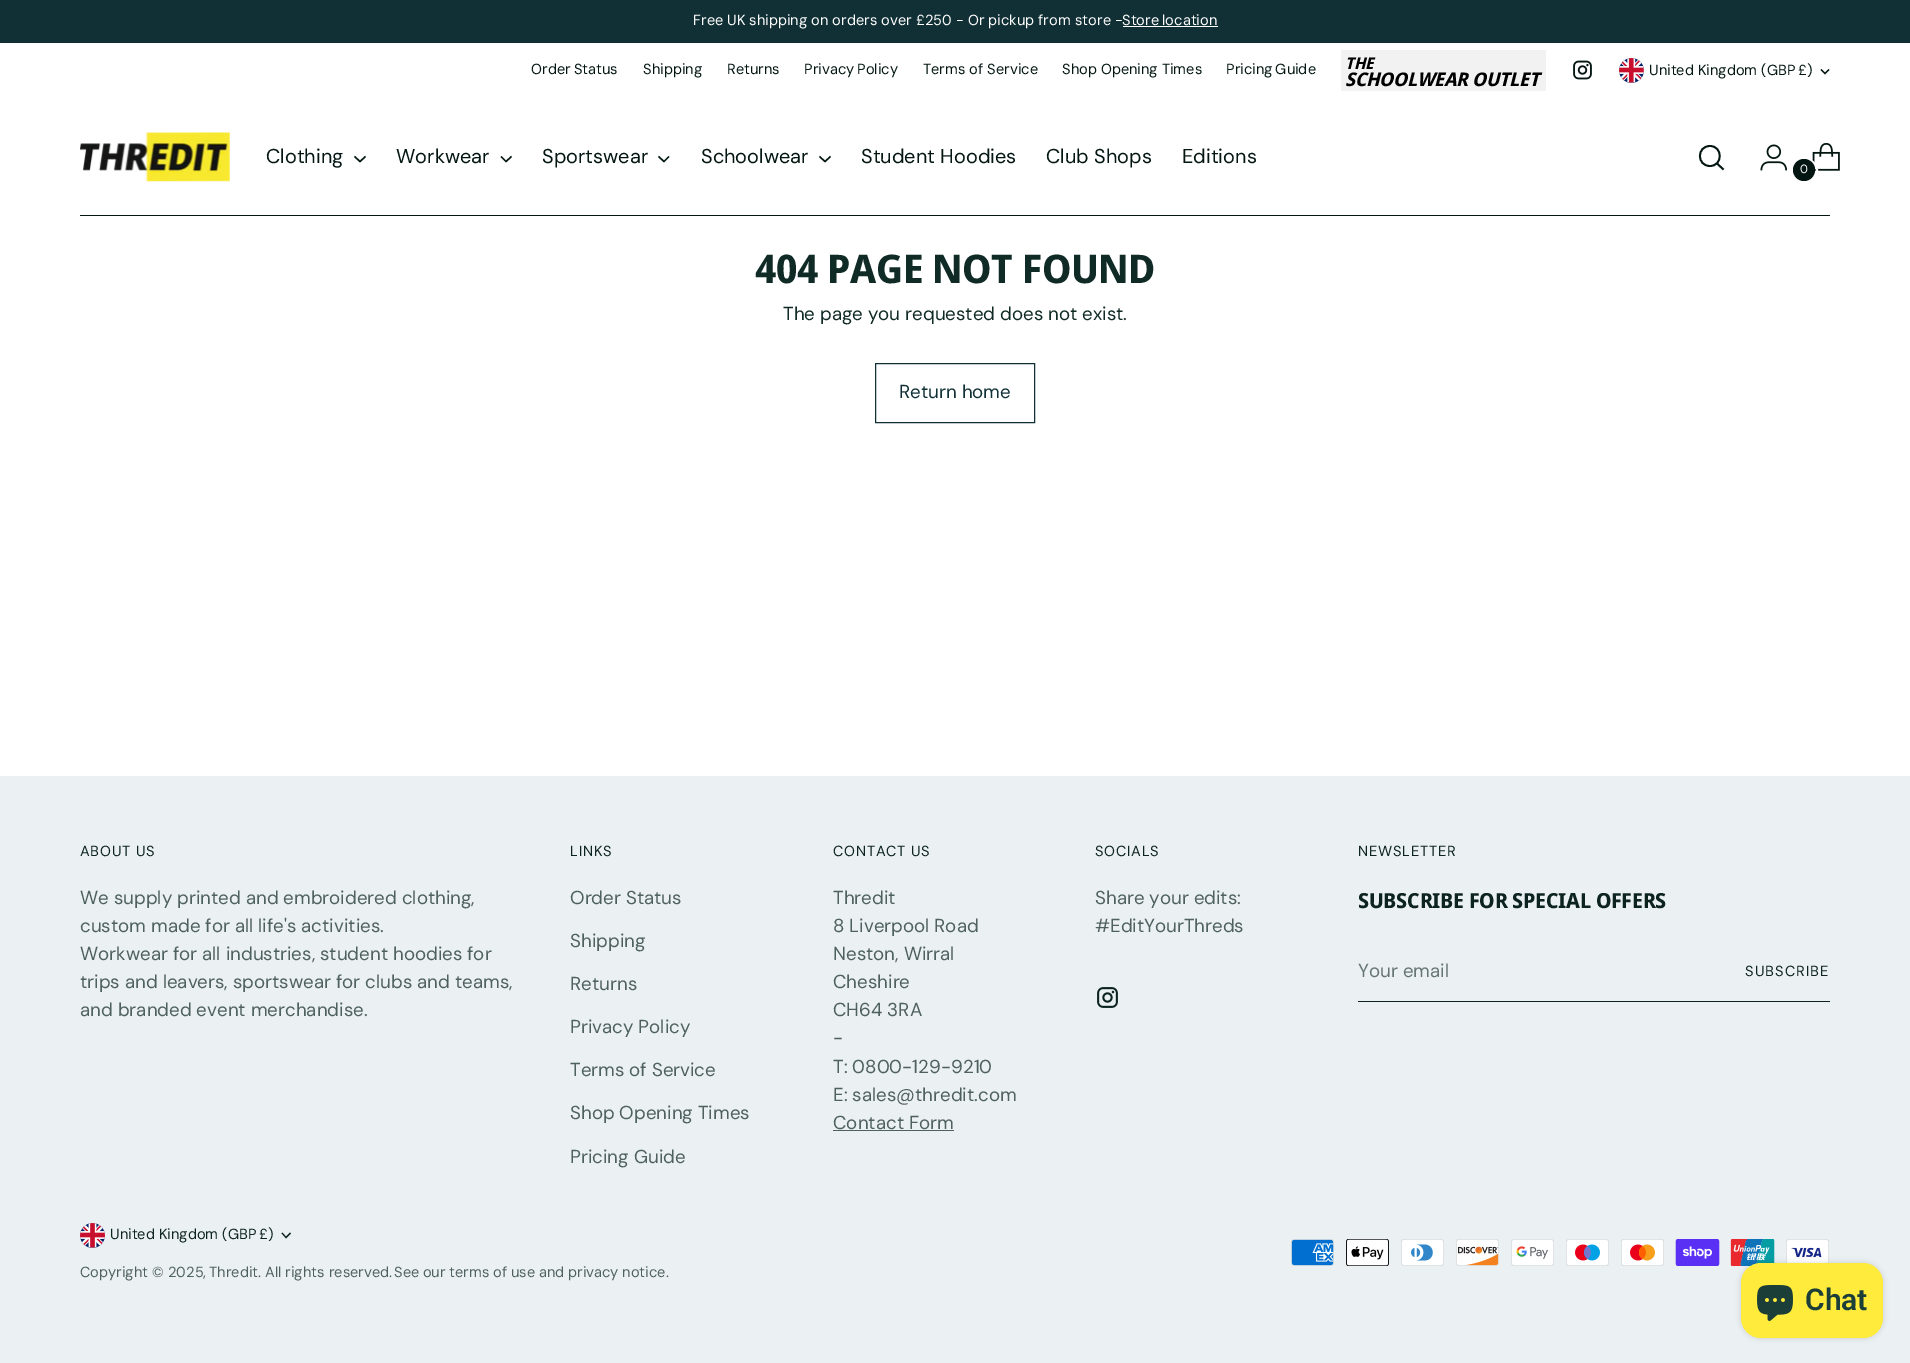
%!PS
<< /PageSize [1910 1363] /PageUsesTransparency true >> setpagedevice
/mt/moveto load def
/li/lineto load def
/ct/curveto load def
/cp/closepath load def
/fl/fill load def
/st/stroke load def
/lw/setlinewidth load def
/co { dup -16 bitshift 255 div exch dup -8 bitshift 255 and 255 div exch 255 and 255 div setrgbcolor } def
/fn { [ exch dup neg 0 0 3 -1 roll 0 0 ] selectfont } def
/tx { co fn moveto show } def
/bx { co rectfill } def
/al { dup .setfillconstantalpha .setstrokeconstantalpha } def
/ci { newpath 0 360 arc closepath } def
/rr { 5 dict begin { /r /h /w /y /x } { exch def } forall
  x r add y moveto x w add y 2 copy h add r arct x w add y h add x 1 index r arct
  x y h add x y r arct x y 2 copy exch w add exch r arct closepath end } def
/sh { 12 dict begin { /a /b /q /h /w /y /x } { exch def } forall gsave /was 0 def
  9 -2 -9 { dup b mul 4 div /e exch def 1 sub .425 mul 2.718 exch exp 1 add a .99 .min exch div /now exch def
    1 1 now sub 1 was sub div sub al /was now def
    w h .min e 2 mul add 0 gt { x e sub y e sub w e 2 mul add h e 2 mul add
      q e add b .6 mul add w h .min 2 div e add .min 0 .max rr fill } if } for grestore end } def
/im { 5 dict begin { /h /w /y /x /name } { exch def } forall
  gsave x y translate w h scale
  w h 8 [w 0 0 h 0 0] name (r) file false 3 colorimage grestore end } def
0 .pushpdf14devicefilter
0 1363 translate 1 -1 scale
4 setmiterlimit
0 0 1910 1363 16#FFFFFF bx
0 0 1910 43 16#113035 bx
1123 26 95 1 16#FFFFFF bx
80 215 1750 1 16#031612 bx
1341 50 205 41 16#F2F2F2 bx
(media/1.raw) 1573 60 19 20 im
(media/2.raw) 1619 58 25 25 im
16#031612 co
1.1 lw
1821 69.5 mt 1825 73.5 li 1829 69.5 li st
(media/3.raw) 80 132 150 50 im
1.4 lw
354.5 156.5 mt 360 161.5 li 365.5 156.5 li st
501 156.5 mt 506 161.5 li 511.5 156.5 li st
658.5 156.5 mt 664 161.5 li 669 156.5 li st
819.5 156.5 mt 825 161.5 li 830.5 156.5 li st
1.8 lw
1 setlinecap
1710 166 mt 1723 166 1723 146 1710 146 ct 1696.5 146 1696.5 166 1710 166 ct cp st
0 setlinecap
1717 163.5 mt 1723.5 169.5 li st
(media/4.raw) 1760 144 27 27 im
(media/5.raw) 1812 143 28 28 im
16#FFFFFF co
2 lw
1792 159 25 24 12 rr st
16#031612 co
1804 170 11 ci fl
16#113035 co
1 lw
875.5 363.5 159 59 rectstroke
0 776 1910 587 16#EBF0F2 bx
833 1130 121 1 16#4F615E bx
(media/6.raw) 1097 987 21 21 im
1358 1001 472 1 16#0C231E bx
(media/7.raw) 80 1223 25 25 im
1.1 lw
282 1233 mt 286 1237.5 li 290.5 1233 li st
(media/8.raw) 1291 1239 43 27 im
(media/9.raw) 1346 1239 43 27 im
(media/10.raw) 1401 1239 43 27 im
(media/11.raw) 1456 1239 43 27 im
(media/12.raw) 1511 1239 43 27 im
(media/13.raw) 1566 1239 43 27 im
(media/14.raw) 1621 1239 43 27 im
(media/15.raw) 1675 1239 45 27 im
(media/16.raw) 1730 1239 45 27 im
(media/17.raw) 1786 1239 43 24 im
16#000000 co
1741 1263 142 75 20 3 .15 sh
16#FFEB3B co
1741 1263 142 75 20 rr fl
(media/18.raw) 1757 1285 36 36 im
/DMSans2-Regular 14.6 fn
16#FFFFFF co
693 25 mt .1 0 32 (Free UK shipping on orders over £250 - Or pickup from store -) widthshow
1122 25 mt -1 0 32 (Store location) widthshow
16#031612 co
531 74 mt -1 0 32 (Order Status) widthshow
(Shipping) 643 74 /DMSans2-Regular 14.6 16#031612 tx
(Returns) 727 74 /DMSans2-Regular 14.6 16#031612 tx
804 74 mt -1 0 32 (Privacy Policy) widthshow
(Terms of Service) 923 74 /DMSans2-Regular 14.6 16#031612 tx
(Shop Opening Times) 1062 74 /DMSans2-Regular 14.6 16#031612 tx
1226 74 mt -1 0 32 (Pricing Guide) widthshow
/NotoSansDisplay-BoldItalic 16 fn
16#000000 co
1345 69 mt -.2 0 (THE) ashow
/NotoSansDisplay-BoldItalic 18.75 fn
1345 86 mt -.2 0 (SCHOOLWEAR OUTLET) ashow
(United Kingdom \(GBP) 1649 75 /DMSans2-Regular 14.6 16#031612 tx
(£\)) 1798 75 /DMSans2-Regular 14.6 16#031612 tx
(Clothing) 266 163 /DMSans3-Regular 20 16#031612 tx
(Workwear) 396 163 /DMSans3-Regular 20 16#031612 tx
(Sportswear) 542 163 /DMSans3-Regular 20 16#031612 tx
(Schoolwear) 701 163 /DMSans3-Regular 20 16#031612 tx
(Student Hoodies) 861 163 /DMSans3-Regular 20 16#031612 tx
(Club Shops) 1046 163 /DMSans3-Regular 20 16#031612 tx
(Editions) 1182 163 /DMSans3-Regular 20 16#031612 tx
(0) 1800 173 /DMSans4-Regular 12 16#FFFFFF tx
/NotoSansDisplay-Bold 39.4 fn
16#102B26 co
755 283 mt -.4 0 (404 PAGE NOT FOUND) ashow
(The page you requested does not exist.) 783 320 /DMSans-Regular 18.75 16#102B26 tx
(Return home) 899 398 /DMSans-Regular 18.75 16#113035 tx
/DMSans2-Regular 14.6 fn
16#0C231E co
80 856 mt .75 0 (ABOUT US) ashow
(We supply printed and embroidered clothing,) 80 904 /DMSans-Regular 18.75 16#4F615E tx
(custom made for all life's activities.) 80 932 /DMSans-Regular 18.75 16#4F615E tx
(Workwear for all industries, student hoodies for) 80 960 /DMSans-Regular 18.75 16#4F615E tx
(trips and leavers, sportswear for clubs and teams,) 80 988 /DMSans-Regular 18.75 16#4F615E tx
(and branded event merchandise.) 80 1016 /DMSans-Regular 18.75 16#4F615E tx
/DMSans2-Regular 14.6 fn
16#0C231E co
570 856 mt .75 0 (LINKS) ashow
(Order Status) 570 904 /DMSans-Regular 18.75 16#4F615E tx
(Shipping) 570 947 /DMSans-Regular 18.75 16#4F615E tx
(Returns) 570 990 /DMSans-Regular 18.75 16#4F615E tx
(Privacy Policy) 570 1033 /DMSans-Regular 18.75 16#4F615E tx
(Terms of Service) 570 1076 /DMSans-Regular 18.75 16#4F615E tx
(Shop Opening Times) 570 1119 /DMSans-Regular 18.75 16#4F615E tx
(Pricing Guide) 570 1163 /DMSans-Regular 18.75 16#4F615E tx
/DMSans2-Regular 14.6 fn
16#0C231E co
833 856 mt .75 0 (CONTACT US) ashow
(Thredit) 833 904 /DMSans-Regular 18.75 16#4F615E tx
(8 Liverpool Road) 833 932 /DMSans-Regular 18.75 16#4F615E tx
(Neston, Wirral) 833 960 /DMSans-Regular 18.75 16#4F615E tx
(Cheshire) 833 988 /DMSans-Regular 18.75 16#4F615E tx
(CH64 3RA) 833 1016 /DMSans-Regular 18.75 16#4F615E tx
(-) 833 1044 /DMSans-Regular 18.75 16#4F615E tx
(T: 0800-129-9210) 833 1073 /DMSans-Regular 18.75 16#4F615E tx
(E: sales@thredit.com) 833 1101 /DMSans-Regular 18.75 16#4F615E tx
(Contact Form) 833 1129 /DMSans-Regular 18.75 16#4F615E tx
/DMSans2-Regular 14.6 fn
16#0C231E co
1095 856 mt .75 0 (SOCIALS) ashow
(Share your edits:) 1095 904 /DMSans-Regular 18.75 16#4F615E tx
(#EditYourThreds) 1095 932 /DMSans-Regular 18.75 16#4F615E tx
/DMSans2-Regular 14.6 fn
16#0C231E co
1358 856 mt .75 0 (NEWSLETTER) ashow
/NotoSansDisplay-Bold 20.8 fn
1358 908 mt -.2 0 (SUBSCRIBE FOR SPECIAL OFFERS) ashow
(Your email) 1358 977 /DMSans-Regular 18.75 16#657573 tx
/DMSans2-Regular 14.6 fn
16#0C231E co
1745 976 mt 1 0 (SUBSCRIBE) ashow
(United Kingdom \(GBP) 110 1239 /DMSans2-Regular 14.6 16#0C231E tx
(£\)) 259 1239 /DMSans2-Regular 14.6 16#0C231E tx
(Copyright © 2025,) 80 1277 /DMSans2-Regular 14.6 16#4F615E tx
(Thredit) 209 1277 /DMSans2-Regular 14.6 16#4F615E tx
(.) 258 1277 /DMSans2-Regular 14.6 16#4F615E tx
(All rights reserved.) 265 1277 /DMSans2-Regular 14.6 16#4F615E tx
394 1277 mt -.25 0 32 (See our terms of use and privacy notice.) widthshow
(Chat) 1805 1310 /Roboto-SemiBold 30 16#1B3E38 tx
.poppdf14devicefilter showpage
